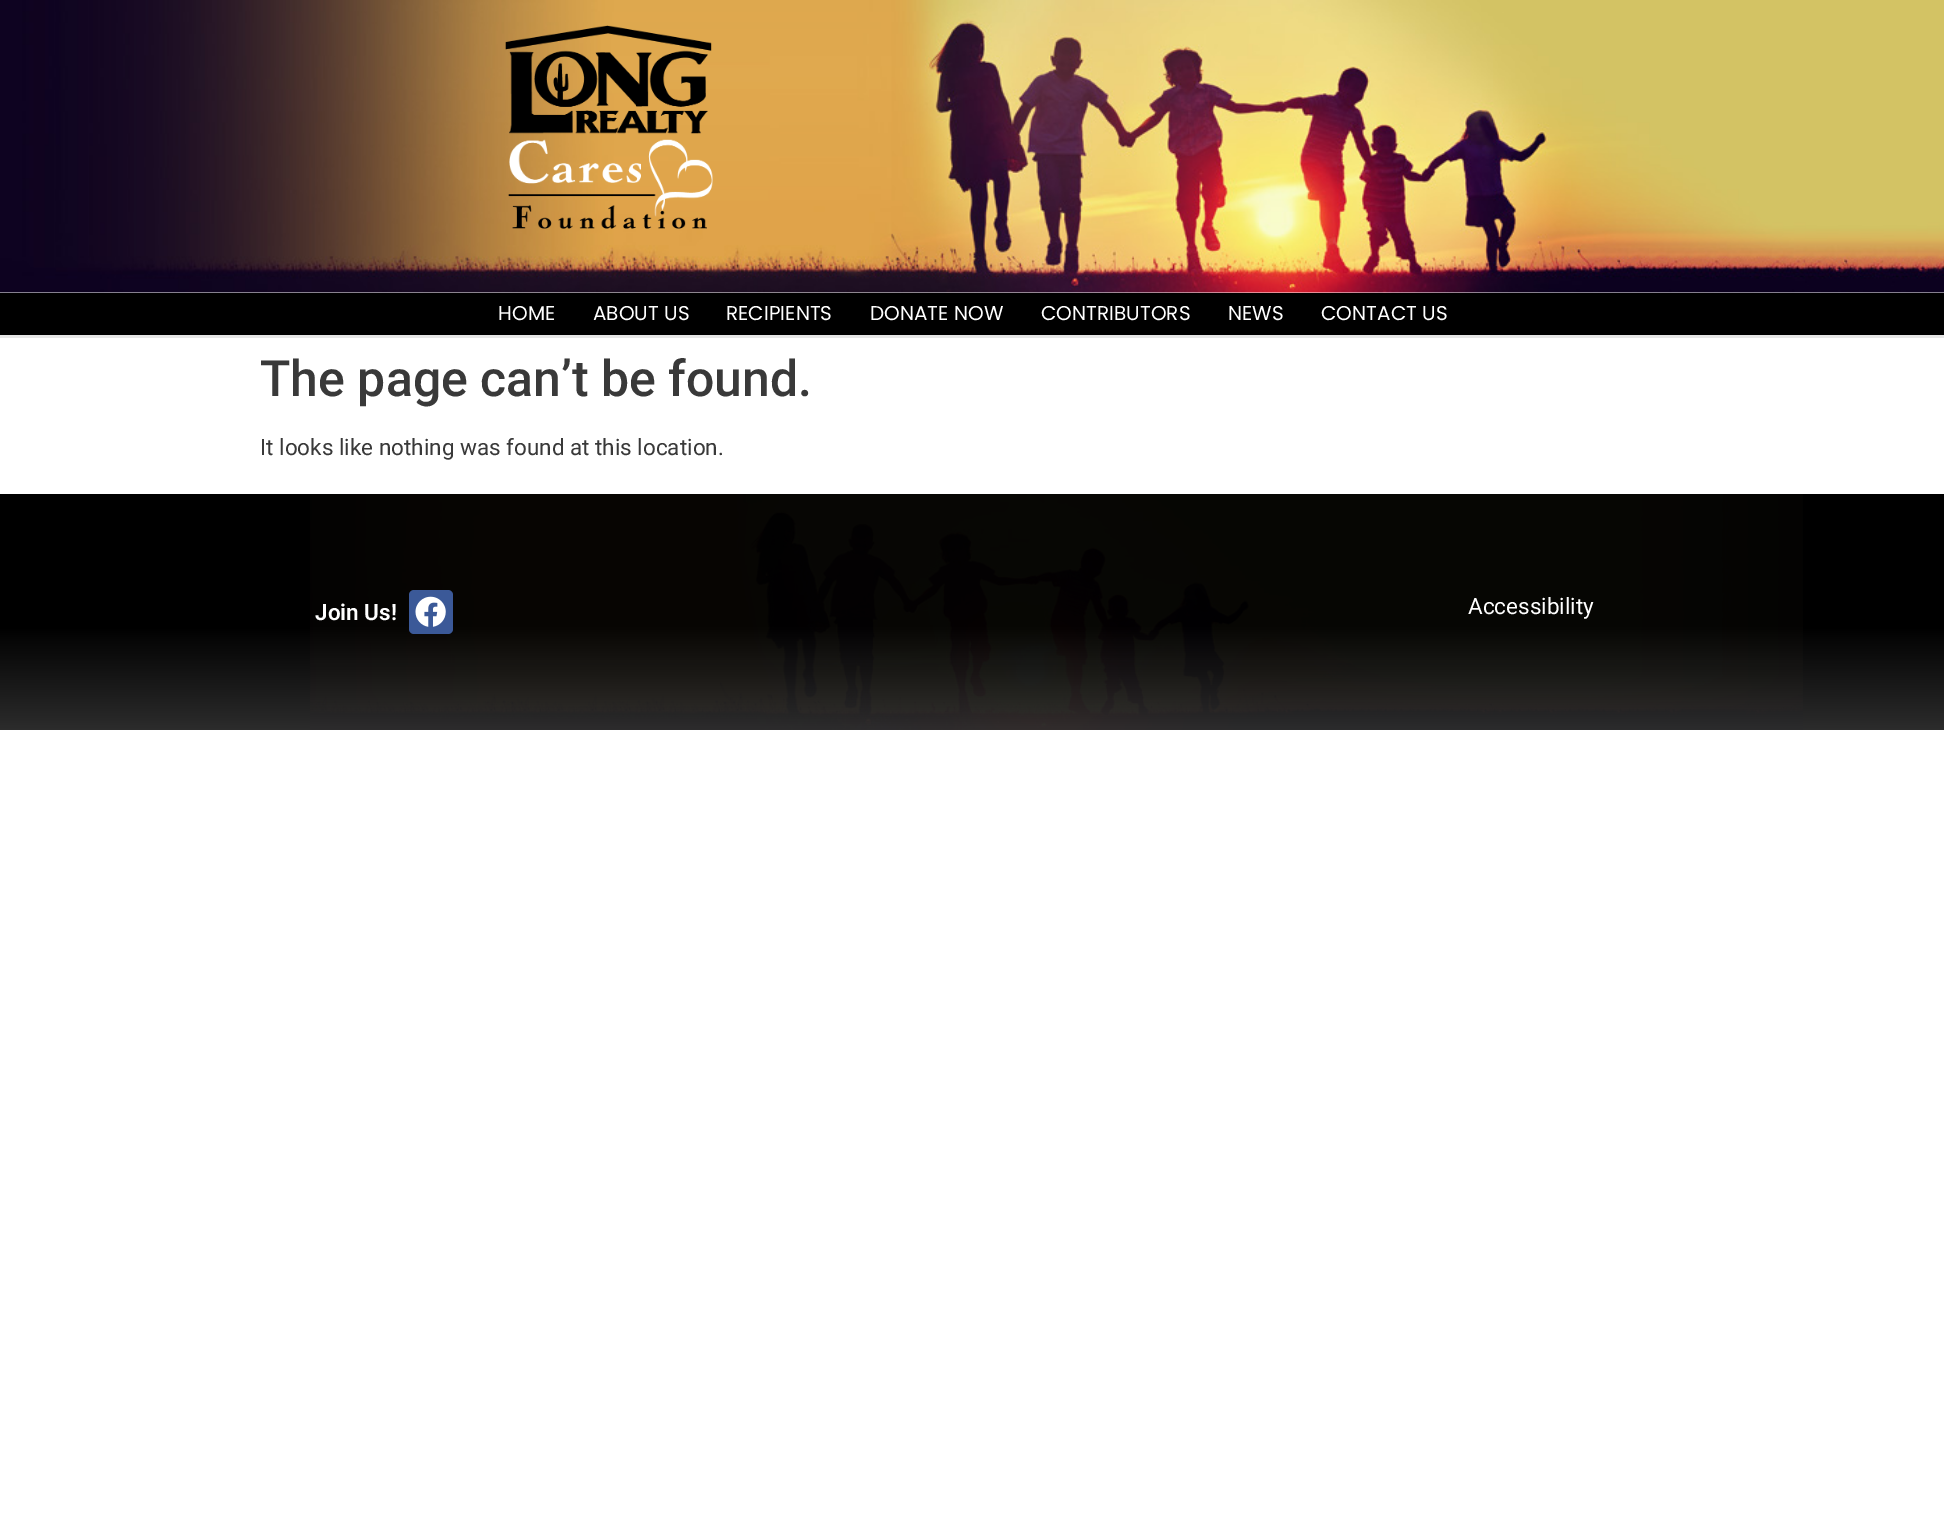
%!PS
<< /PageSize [1944 1533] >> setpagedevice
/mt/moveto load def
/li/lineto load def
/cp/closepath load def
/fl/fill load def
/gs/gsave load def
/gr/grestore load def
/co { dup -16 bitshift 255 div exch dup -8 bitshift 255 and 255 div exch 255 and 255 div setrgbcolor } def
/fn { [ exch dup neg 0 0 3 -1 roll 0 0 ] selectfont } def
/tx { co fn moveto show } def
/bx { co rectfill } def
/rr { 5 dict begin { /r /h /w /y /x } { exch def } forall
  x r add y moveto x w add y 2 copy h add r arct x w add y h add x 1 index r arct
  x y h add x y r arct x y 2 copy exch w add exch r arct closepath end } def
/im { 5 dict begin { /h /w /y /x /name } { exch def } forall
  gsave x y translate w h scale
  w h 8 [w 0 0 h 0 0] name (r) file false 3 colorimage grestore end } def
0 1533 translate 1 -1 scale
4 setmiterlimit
0 0 1944 1533 16#FFFFFF bx
(media/1.raw) 0 0 1944 293 im
(media/2.raw) 505 25 208 204 im
0 293 1944 42 16#000000 bx
0 335 1944 3 16#E6E6E6 bx
gs 0 494 mt 1944 494 li 1944 730 li 0 730 li cp clip newpath
<< /ShadingType 2 /ColorSpace /DeviceRGB /Coords [973 494 973 730] /Extend [true true] /Function << /FunctionType 3 /Domain [0 1] /Functions [<< /FunctionType 2 /Domain [0 1] /C0 [0 0 0] /C1 [0 0 0] /N 1 >> << /FunctionType 2 /Domain [0 1] /C0 [0 0 0] /C1 [.173 .173 .173] /N 1 >>] /Bounds [.56] /Encode [0 1 0 1] >> >> shfill gr
(media/3.raw) 310 494 1493 236 im
16#3B5998 co
409 590 44 44 5 rr fl
(media/4.raw) 415 596 31 31 im
(HOME) 498 320 /Poppins-Regular 20 16#FFFFFF tx
(ABOUT US) 593 320 /Poppins-Regular 20 16#FFFFFF tx
(RECIPIENTS) 726 320 /Poppins-Regular 20 16#FFFFFF tx
(DONATE NOW) 870 320 /Poppins-Regular 20 16#FFFFFF tx
(CONTRIBUTORS) 1041 320 /Poppins-Regular 20 16#FFFFFF tx
(NEWS) 1228 320 /Poppins-Regular 20 16#FFFFFF tx
(CONTACT US) 1321 320 /Poppins-Regular 20 16#FFFFFF tx
(The page can’t be found.) 260 396 /Roboto-Medium 50 16#393939 tx
(It looks like nothing was found at this location.) 260 455 /Roboto-Regular 22.5 16#393939 tx
(Join Us!) 315 620 /Roboto-SemiBold 22.5 16#FFFFFF tx
(Accessibility) 1468 614 /Roboto-Regular 22.5 16#FFFFFF tx
showpage
